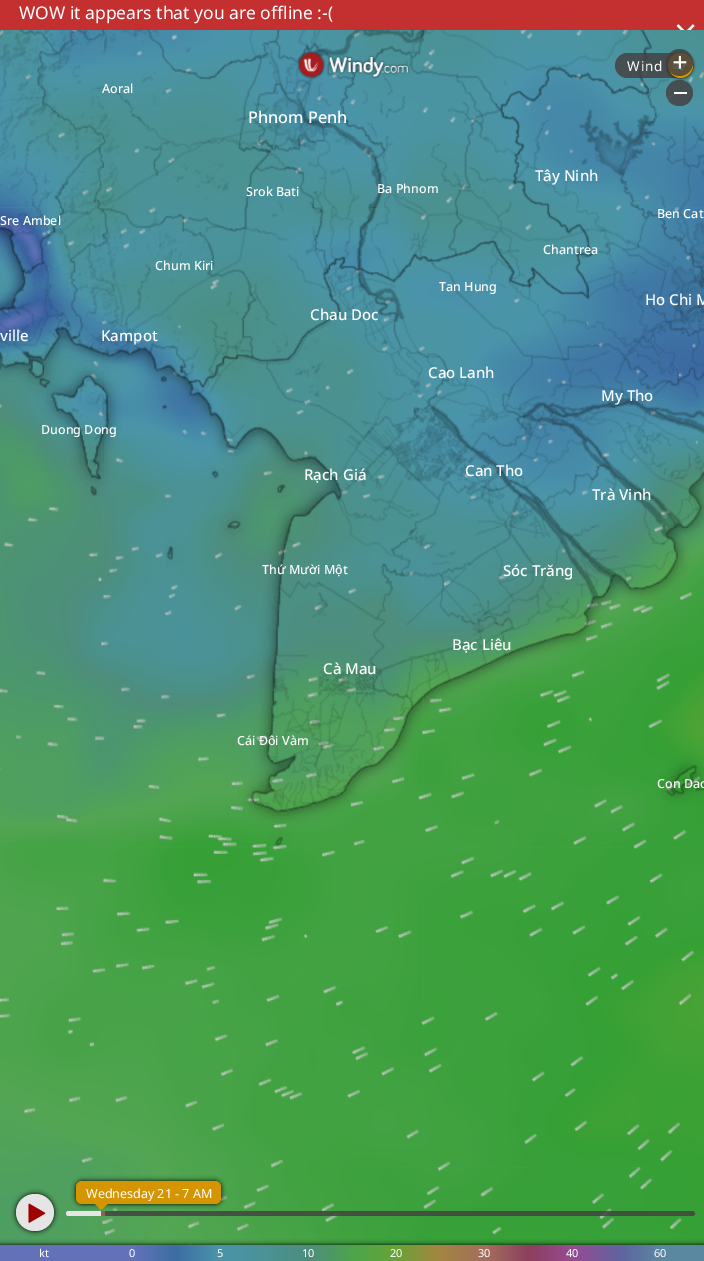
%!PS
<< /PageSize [704 1261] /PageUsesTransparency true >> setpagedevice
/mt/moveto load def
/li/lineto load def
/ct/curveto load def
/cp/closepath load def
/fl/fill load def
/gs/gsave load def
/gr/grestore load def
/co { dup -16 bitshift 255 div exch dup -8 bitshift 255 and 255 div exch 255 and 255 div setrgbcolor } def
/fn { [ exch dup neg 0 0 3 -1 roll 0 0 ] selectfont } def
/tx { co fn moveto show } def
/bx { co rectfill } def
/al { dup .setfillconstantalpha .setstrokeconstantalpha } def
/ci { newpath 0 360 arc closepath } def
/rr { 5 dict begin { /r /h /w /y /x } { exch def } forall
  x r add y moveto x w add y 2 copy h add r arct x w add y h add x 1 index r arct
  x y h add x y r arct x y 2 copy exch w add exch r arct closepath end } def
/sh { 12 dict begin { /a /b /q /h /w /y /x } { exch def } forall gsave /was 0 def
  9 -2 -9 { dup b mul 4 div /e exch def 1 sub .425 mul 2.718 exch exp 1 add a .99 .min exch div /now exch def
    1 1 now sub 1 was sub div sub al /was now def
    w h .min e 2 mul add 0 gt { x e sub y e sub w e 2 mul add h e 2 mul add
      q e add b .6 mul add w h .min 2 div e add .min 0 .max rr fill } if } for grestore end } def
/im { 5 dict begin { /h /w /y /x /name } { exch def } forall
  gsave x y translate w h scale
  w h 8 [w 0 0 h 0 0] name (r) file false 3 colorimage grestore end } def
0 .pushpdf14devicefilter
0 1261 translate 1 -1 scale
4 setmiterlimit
0 0 704 1261 16#808080 bx
0 0 704 30 16#C42F2F bx
(media/1.raw) 676 24 19 6 im
(media/13.raw) 103 527 321 321 im
(media/10.raw) 103 207 321 321 im
(media/12.raw) 0 527 104 321 im
(media/9.raw) 0 207 104 321 im
(media/14.raw) 423 527 281 321 im
(media/11.raw) 423 207 281 321 im
(media/7.raw) 103 30 321 178 im
(media/6.raw) 0 30 104 178 im
(media/8.raw) 424 30 280 178 im
(media/16.raw) 103 847 321 321 im
(media/15.raw) 0 847 104 321 im
(media/17.raw) 423 847 281 321 im
(media/19.raw) 103 1167 321 78 im
(media/18.raw) 0 1167 104 78 im
(media/20.raw) 423 1167 281 78 im
(media/21.raw) 0 30 704 1215 im
(media/28.raw) 165 527 259 319 im
(media/26.raw) 103 207 321 321 im
(media/23.raw) 104 30 320 178 im
(media/2.raw) 297 50 29 29 im
(media/3.raw) 327 55 83 24 im
(media/24.raw) 424 30 280 178 im
0.84 al
16#444141 co
615 53 78 25 12.5 rr fl
1 al
16#000000 co
668 53 25 25 12.5 1.5 1 sh
16#D49500 co
680.5 65.5 12.5 ci fl
(media/4.raw) 672 61 15 10 im
0.84 al
16#444141 co
679.5 62.5 13.5 ci fl
1 al
(media/5.raw) 673 55 14 14 im
0.84 al
666 80 27 26 13 rr fl
1 al
674 92 13 2 16#FFFFFF bx
(media/22.raw) 0 30 104 178 im
(media/25.raw) 0 208 104 288 im
(media/27.raw) 424 208 280 320 im
(media/29.raw) 424 528 280 276 im
16#000000 co
16 1194 38 37 18.5 2.5 1 sh
16#E5E5E5 co
16 1194 38 37 18.5 rr fl
(media/30.raw) 28 1203 18 20 im
16#000000 co
76 1181 145 23 6 2.5 1 sh
16#D49500 co
76 1181 145 23 6 rr fl
95 1204 mt 107.5 1204 li 101 1210 li cp fl
0.84 al
16#444141 co
66 1211 629 5 2.5 rr fl
1 al
16#E5E5E5 co
68.5 1211 mt 101 1211 li 101 1216 li 68.5 1216 li 67 1216 66 1215 66 1213.5 ct 66 1212 67 1211 68.5 1211 ct cp fl
101 1211 4 5 16#946051 bx
16#000000 co
0 1245 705 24 0 2.5 1 sh
gs 0 1245 mt 704 1245 li 704 1261 li 0 1261 li cp clip newpath
<< /ShadingType 2 /ColorSpace /DeviceRGB /Coords [0 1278 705 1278] /Extend [true true] /Function << /FunctionType 3 /Domain [0 1] /Functions [<< /FunctionType 2 /Domain [0 1] /C0 [.384 .443 .722] /C1 [.384 .443 .722] /N 1 >> << /FunctionType 2 /Domain [0 1] /C0 [.384 .443 .722] /C1 [.239 .431 .639] /N 1 >> << /FunctionType 2 /Domain [0 1] /C0 [.239 .431 .639] /C1 [.29 .58 .667] /N 1 >> << /FunctionType 2 /Domain [0 1] /C0 [.29 .58 .667] /C1 [.29 .573 .58] /N 1 >> << /FunctionType 2 /Domain [0 1] /C0 [.29 .573 .58] /C1 [.302 .557 .486] /N 1 >> << /FunctionType 2 /Domain [0 1] /C0 [.302 .557 .486] /C1 [.298 .643 .298] /N 1 >> << /FunctionType 2 /Domain [0 1] /C0 [.298 .643 .298] /C1 [.404 .643 .212] /N 1 >> << /FunctionType 2 /Domain [0 1] /C0 [.404 .643 .212] /C1 [.635 .529 .251] /N 1 >> << /FunctionType 2 /Domain [0 1] /C0 [.635 .529 .251] /C1 [.635 .427 .361] /N 1 >> << /FunctionType 2 /Domain [0 1] /C0 [.635 .427 .361] /C1 [.553 .247 .361] /N 1 >> << /FunctionType 2 /Domain [0 1] /C0 [.553 .247 .361] /C1 [.592 .294 .569] /N 1 >> << /FunctionType 2 /Domain [0 1] /C0 [.592 .294 .569] /C1 [.373 .392 .627] /N 1 >> << /FunctionType 2 /Domain [0 1] /C0 [.373 .392 .627] /C1 [.357 .533 .631] /N 1 >> << /FunctionType 2 /Domain [0 1] /C0 [.357 .533 .631] /C1 [.357 .533 .631] /N 1 >>] /Bounds [.19 .25 .31 .38 .44 .5 .56 .62 .69 .75 .81 .88 .94] /Encode [0 1 0 1 0 1 0 1 0 1 0 1 0 1 0 1 0 1 0 1 0 1 0 1 0 1 0 1] >> >> shfill gr
(WOW it appears that you are offline :-\() 19 19 /NotoSans-Regular 17.5 16#FFFFFF tx
/NotoSans-Regular 13.5 fn
627 71 mt 1 0 (Wind) ashow
(Aoral) 102 93 /NotoSans-Medium 12.5 16#FFFFFF tx
(Phnom Penh) 248 123 /NotoSans-Medium 16.25 16#FFFFFF tx
(Srok Bati) 246 196 /NotoSans-Medium 12.5 16#FFFFFF tx
(Ba Phnom) 377 193 /NotoSans-Medium 12.5 16#FFFFFF tx
(Tây Ninh) 535 181 /NotoSans-Medium 15 16#FFFFFF tx
(Sre Ambel) 0 225 /NotoSans-Medium 12.5 16#FFFFFF tx
(ville) 0 341 /NotoSans-Medium 15 16#FFFFFF tx
(Duong Dong) 41 434 /NotoSans-Medium 12.5 16#FFFFFF tx
(Chum Kiri) 155 270 /NotoSans-Medium 12.5 16#FFFFFF tx
(Chau Doc) 310 320 /NotoSans-Medium 15 16#FFFFFF tx
(Kampot) 101 341 /NotoSans-Medium 15 16#FFFFFF tx
(Rạch Giá) 304 480 /NotoSans-Medium 15 16#FFFFFF tx
(Ben Cat) 657 218 /NotoSans-Medium 12.5 16#FFFFFF tx
(Chantrea) 543 254 /NotoSans-Medium 12.5 16#FFFFFF tx
(Tan Hung) 439 291 /NotoSans-Medium 12.5 16#FFFFFF tx
(Ho Chi M) 645 305 /NotoSans-Medium 15 16#FFFFFF tx
(Cao Lanh) 428 378 /NotoSans-Medium 15 16#FFFFFF tx
(My Tho) 601 401 /NotoSans-Medium 15 16#FFFFFF tx
(Can Tho) 465 476 /NotoSans-Medium 15 16#FFFFFF tx
(Trà Vinh) 592 500 /NotoSans-Medium 15 16#FFFFFF tx
(Thứ Mười Một) 262 574 /NotoSans-Medium 12.5 16#FFFFFF tx
(Cà Mau) 323 674 /NotoSans-Medium 15 16#FFFFFF tx
(Cái Đôi Vàm) 237 745 /NotoSans-Medium 12.5 16#FFFFFF tx
(Sóc Trăng) 503 576 /NotoSans-Medium 15 16#FFFFFF tx
(Bạc Liêu) 452 650 /NotoSans-Medium 15 16#FFFFFF tx
(Con Dao) 657 788 /NotoSans-Medium 12.5 16#FFFFFF tx
(Wednesday 21 - 7 AM) 86 1198 /NotoSans-Regular 12.5 16#FFFFFF tx
(kt) 39 1257 /NotoSans-Regular 11 16#FFFFFF tx
(0) 129 1257 /NotoSans-Regular 11 16#FFFFFF tx
(5) 217 1257 /NotoSans-Regular 11 16#FFFFFF tx
(10) 302 1257 /NotoSans-Regular 11 16#FFFFFF tx
(20) 390 1257 /NotoSans-Regular 11 16#FFFFFF tx
(30) 478 1257 /NotoSans-Regular 11 16#FFFFFF tx
(40) 566 1257 /NotoSans-Regular 11 16#FFFFFF tx
(60) 654 1257 /NotoSans-Regular 11 16#FFFFFF tx
.poppdf14devicefilter showpage
